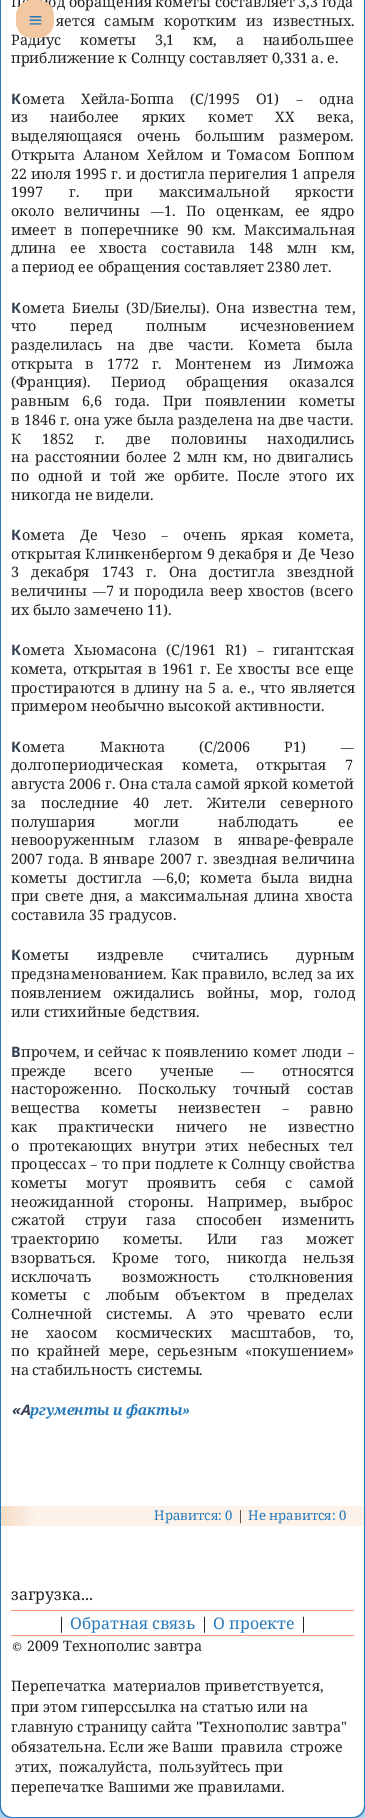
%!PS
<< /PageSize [365 1818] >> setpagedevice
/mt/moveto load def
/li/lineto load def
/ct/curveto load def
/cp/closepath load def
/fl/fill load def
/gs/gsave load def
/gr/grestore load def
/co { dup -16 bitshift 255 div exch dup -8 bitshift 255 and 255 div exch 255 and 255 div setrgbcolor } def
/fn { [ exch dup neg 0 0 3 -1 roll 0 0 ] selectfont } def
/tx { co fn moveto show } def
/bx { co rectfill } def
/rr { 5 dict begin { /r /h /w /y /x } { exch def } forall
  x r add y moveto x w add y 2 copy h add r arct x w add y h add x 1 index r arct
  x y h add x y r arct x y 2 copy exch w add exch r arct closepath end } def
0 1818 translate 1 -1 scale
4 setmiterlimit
0 0 365 1818 16#A9D0EA bx
1 0 363 1606 16#FFFFFF bx
364 0 1 1606 16#2679BA bx
0 0 1 1606 16#2679BA bx
gs 1 1506 mt 364 1506 li 364 1526 li 1 1526 li cp clip newpath
<< /ShadingType 2 /ColorSpace /DeviceRGB /Coords [1 1516 364 1516] /Extend [true true] /Function << /FunctionType 3 /Domain [0 1] /Functions [<< /FunctionType 2 /Domain [0 1] /C0 [.969 .867 .776] /C1 [.988 .949 .918] /N 1 >> << /FunctionType 2 /Domain [0 1] /C0 [.988 .949 .918] /C1 [.988 .949 .918] /N 1 >>] /Bounds [.1] /Encode [0 1 0 1] >> >> shfill gr
0 1606 365 4 16#FFFFFF bx
364 1606 1 4 16#2679BA bx
0 1606 1 4 16#2679BA bx
16#FFFFFF co
0 1610 mt 365 1610 li 365 1806 li 365 1812.5 359.5 1818 353 1818 ct 12 1818 li 5.5 1818 0 1812.5 0 1806 ct cp fl
16#2679BA co
0 1610 mt 365 1610 li 365 1806 li 365 1813 360 1818 353 1818 ct 12 1818 li 5 1818 0 1813 0 1806 ct cp 1 1610 mt 364 1610 li 364 1806 li 364 1812 359 1817 353 1817 ct 12 1817 li 6 1817 1 1812 1 1806 ct cp eofill
11 1610 343 1 16#FF9376 bx
11 1635 343 1 16#FF9376 bx
(Период обращения кометы составляет 3,3 года) 11 7 /NotoSerif-Regular 14.4 16#222222 tx
56 26 mt 6 0 32 (яется самым коротким из известных.) widthshow
11 45 mt 15 0 32 (Радиус кометы 3,1 км, а наибольшее) widthshow
(приближение к Солнцу составляет 0,331 а. е.) 11 63 /NotoSerif-Regular 14.4 16#222222 tx
(К) 11 104 /NotoSans-Bold 14.4 16#343E54 tx
/NotoSerif-Regular 14.4 fn
16#222222 co
22 104 mt 12 0 32 (омета Хейла-Боппа \(C/1995 O1\)) widthshow
(–) 296 104 /Caladea-Regular 14.4 16#222222 tx
(одна) 319 104 /NotoSerif-Regular 14.4 16#222222 tx
(из) 11 122 /NotoSerif-Regular 14.4 16#222222 tx
50 122 mt 19 0 32 (наиболее ярких комет XX века,) widthshow
11 141 mt 11 0 32 (выделяющаяся очень большим размером.) widthshow
11 160 mt 4 0 32 (Открыта Аланом Хейлом и) widthshow
227 160 mt 4 0 32 (Томасом Боппом) widthshow
11 179 mt .5 0 32 (22 июля 1995 г. и достигла перигелия 1 апреля) widthshow
11 197 mt 22 0 32 (1997 г. при) widthshow
159 197 mt 22 0 32 (максимальной яркости) widthshow
(около) 11 216 /NotoSerif-Regular 14.4 16#222222 tx
(величины) 64 216 /NotoSerif-Regular 14.4 16#222222 tx
(—) 150 216 /Caladea-Regular 14.4 16#222222 tx
/NotoSerif-Regular 14.4 fn
164 216 mt 7 0 32 (1. По оценкам, ее ядро) widthshow
11 235 mt 5 0 32 (имеет в) widthshow
81 235 mt 5 0 32 (поперечнике 90 км. Максимальная) widthshow
11 253 mt 10 0 32 (длина ее хвоста составила 148 млн км,) widthshow
(а) 11 272 /NotoSerif-Regular 14.4 16#222222 tx
(период ее обращения составляет 2380 лет.) 22 272 /NotoSerif-Regular 14.4 16#222222 tx
(К) 11 313 /NotoSans-Bold 14.4 16#343E54 tx
/NotoSerif-Regular 14.4 fn
16#222222 co
22 313 mt 3 0 32 (омета Биелы \(3D/Биелы\). Она известна тем,) widthshow
11 331 mt 30 0 32 (что перед полным исчезновением) widthshow
11 350 mt 10.5 0 32 (разделилась на две части. Комета была) widthshow
11 369 mt 9 0 32 (открыта в 1772 г. Монтенем из Лиможа) widthshow
11 387 mt 17 0 32 (\(Франция\). Период обращения оказался) widthshow
11 406 mt 9 0 32 (равным 6,6 года. При появлении кометы) widthshow
11 425 mt .25 0 32 (в 1846 г. она уже была разделена на две части.) widthshow
11 444 mt 17 0 32 (К 1852 г. две половины находились) widthshow
11 462 mt 2.25 0 32 (на расстоянии более 2 млн км, но двигались) widthshow
11 481 mt 5 0 32 (по одной и той же орбите. После этого их) widthshow
(никогда не видели.) 11 500 /NotoSerif-Regular 14.4 16#222222 tx
(К) 11 540 /NotoSans-Bold 14.4 16#343E54 tx
/NotoSerif-Regular 14.4 fn
16#222222 co
22 540 mt 11 0 32 (омета Де Чезо) widthshow
(–) 161 540 /Caladea-Regular 14.4 16#222222 tx
/NotoSerif-Regular 14.4 fn
183 540 mt 11 0 32 (очень яркая комета,) widthshow
11 559 mt 1 0 32 (открытая Клинкенбергом 9 декабря и) widthshow
298 559 mt 1 0 32 (Де Чезо) widthshow
11 577 mt 8.5 0 32 (3 декабря 1743 г. Она достигла звездной) widthshow
(величины) 11 596 /NotoSerif-Regular 14.4 16#222222 tx
(—) 92 596 /Caladea-Regular 14.4 16#222222 tx
/NotoSerif-Regular 14.4 fn
106 596 mt 1.5 0 32 (7 и) widthshow
134 596 mt 1.5 0 32 (породила веер хвостов \(всего) widthshow
(их было замечено 11\).) 11 615 /NotoSerif-Regular 14.4 16#222222 tx
(К) 11 655 /NotoSans-Bold 14.4 16#343E54 tx
/NotoSerif-Regular 14.4 fn
16#222222 co
22 655 mt 5 0 32 (омета Хьюмасона \(C/1961 R1\)) widthshow
(–) 257 655 /Caladea-Regular 14.4 16#222222 tx
(гигантская) 273 655 /NotoSerif-Regular 14.4 16#222222 tx
11 674 mt 2 0 32 (комета, открытая в) widthshow
162 674 mt 2 0 32 (1961 г. Ее хвосты все еще) widthshow
11 693 mt 2 0 32 (простираются в) widthshow
134 693 mt 2 0 32 (длину на) widthshow
208 693 mt 2 0 32 (5 а. е., что является) widthshow
(примером необычно высокой активности.) 11 711 /NotoSerif-Regular 14.4 16#222222 tx
(К) 11 752 /NotoSans-Bold 14.4 16#343E54 tx
/NotoSerif-Regular 14.4 fn
16#222222 co
22 752 mt 31 0 32 (омета Макнота \(C/2006 P1\)) widthshow
(—) 340 752 /Caladea-Regular 14.4 16#222222 tx
/NotoSerif-Regular 14.4 fn
11 770 mt 15 0 32 (долгопериодическая комета, открытая 7) widthshow
(августа 2006 г. Она стала самой яркой кометой) 11 789 /NotoSerif-Regular 14.4 16#222222 tx
(за) 11 808 /NotoSerif-Regular 14.4 16#222222 tx
41 808 mt 11 0 32 (последние 40 лет. Жители северного) widthshow
11 827 mt 35.5 0 32 (полушария могли наблюдать ее) widthshow
11 845 mt 11 0 32 (невооруженным глазом в) widthshow
(январе-феврале) 238 845 /NotoSerif-Regular 14.4 16#222222 tx
11 864 mt 1.5 0 32 (2007 года. В январе 2007 г. звездная величина) widthshow
11 883 mt 6 0 32 (кометы достигла) widthshow
(—) 152 883 /Caladea-Regular 14.4 16#222222 tx
/NotoSerif-Regular 14.4 fn
166 883 mt 6 0 32 (6,0; комета была видна) widthshow
(при) 11 901 /NotoSerif-Regular 14.4 16#222222 tx
45 901 mt 2 0 32 (свете дня, а) widthshow
140 901 mt 2 0 32 (максимальная длина хвоста) widthshow
(составила 35 градусов.) 11 920 /NotoSerif-Regular 14.4 16#222222 tx
(К) 11 960 /NotoSans-Bold 14.4 16#343E54 tx
/NotoSerif-Regular 14.4 fn
16#222222 co
22 960 mt 24 0 32 (ометы издревле считались дурным) widthshow
11 979 mt .25 0 32 (предзнаменованием. Как правило, вслед за их) widthshow
11 998 mt 8 0 32 (появлением ожидались войны, мор, голод) widthshow
(или стихийные бедствия.) 11 1017 /NotoSerif-Regular 14.4 16#222222 tx
(В) 11 1057 /NotoSans-Bold 14.4 16#343E54 tx
/NotoSerif-Regular 14.4 fn
16#222222 co
21 1057 mt 1 0 32 (прочем, и) widthshow
98 1057 mt 1 0 32 (сейчас к) widthshow
165 1057 mt 1 0 32 (появлению комет люди) widthshow
(–) 347 1057 /Caladea-Regular 14.4 16#222222 tx
/NotoSerif-Regular 14.4 fn
11 1076 mt 24 0 32 (прежде всего ученые) widthshow
(—) 240 1076 /Caladea-Regular 14.4 16#222222 tx
(относятся) 282 1076 /NotoSerif-Regular 14.4 16#222222 tx
11 1094 mt 13 0 32 (настороженно. Поскольку точный состав) widthshow
11 1113 mt 17 0 32 (вещества кометы неизвестен) widthshow
(–) 282 1113 /Caladea-Regular 14.4 16#222222 tx
(равно) 310 1113 /NotoSerif-Regular 14.4 16#222222 tx
(как) 11 1132 /NotoSerif-Regular 14.4 16#222222 tx
58 1132 mt 18 0 32 (практически ничего не) widthshow
(известно) 288 1132 /NotoSerif-Regular 14.4 16#222222 tx
(о) 11 1151 /NotoSerif-Regular 14.4 16#222222 tx
29 1151 mt 6 0 32 (протекающих внутри этих небесных тел) widthshow
(процессах) 11 1169 /NotoSerif-Regular 14.4 16#222222 tx
(–) 90 1169 /Caladea-Regular 14.4 16#222222 tx
/NotoSerif-Regular 14.4 fn
102 1169 mt .5 0 32 (то при подлете к Солнцу свойства) widthshow
11 1188 mt 15 0 32 (кометы могут проявить себя с) widthshow
(самой) 309 1188 /NotoSerif-Regular 14.4 16#222222 tx
11 1207 mt 10 0 32 (неожиданной стороны. Например, выброс) widthshow
11 1225 mt 16 0 32 (сжатой струи газа способен изменить) widthshow
11 1244 mt 20 0 32 (траекторию кометы. Или газ может) widthshow
11 1263 mt 13 0 32 (взорваться. Кроме того, никогда нельзя) widthshow
11 1282 mt 26 0 32 (исключать возможность столкновения) widthshow
11 1300 mt 12 0 32 (кометы с) widthshow
106 1300 mt 12 0 32 (любым объектом в) widthshow
(пределах) 286 1300 /NotoSerif-Regular 14.4 16#222222 tx
11 1319 mt 10 0 32 (Солнечной системы. А это чревато если) widthshow
(не) 11 1338 /NotoSerif-Regular 14.4 16#222222 tx
46 1338 mt 14.5 0 32 (хаосом космических масштабов, то,) widthshow
(по) 11 1356 /NotoSerif-Regular 14.4 16#222222 tx
37 1356 mt 5 0 32 (крайней мере, серьезным) widthshow
(«) 245 1356 /Caladea-Regular 14.4 16#222222 tx
(покушением) 252 1356 /NotoSerif-Regular 14.4 16#222222 tx
(») 347 1356 /Caladea-Regular 14.4 16#222222 tx
(на) 11 1375 /NotoSerif-Regular 14.4 16#222222 tx
32 1375 mt .25 0 32 (стабильность системы.) widthshow
(«А) 11 1415 /NotoSans-BoldItalic 14.4 16#343E54 tx
(ргументы и факты») 30 1415 /NotoSerif-BoldItalic 14.4 16#2679BA tx
(Нравится: 0) 154 1520 /NotoSerif-Regular 13.25 16#2679BA tx
(|) 237 1520 /NotoSerif-Regular 13.25 16#222222 tx
(Не нравится: 0) 248 1520 /NotoSerif-Regular 13.25 16#2679BA tx
16#F2C8A2 co
16 0 38 38 16 rr fl
(≡) 28 28 /Caladea-Regular 27 16#2679BA tx
(загрузка...) 11 1600 /NotoSerif-Regular 16 16#222222 tx
(|) 57 1629 /NotoSerif-Regular 16 16#222222 tx
(Обратная связь) 70 1629 /NotoSerif-Regular 16 16#2679BA tx
(|) 200 1629 /NotoSerif-Regular 16 16#222222 tx
(О проекте) 213 1629 /NotoSerif-Regular 16 16#2679BA tx
(|) 299 1629 /NotoSerif-Regular 16 16#222222 tx
(©) 11 1651 /Caladea-Regular 14.4 16#222222 tx
(2009 Технополис завтра) 27 1651 /NotoSerif-Regular 14.4 16#222222 tx
(Перепечатка  материалов приветствуется,) 11 1691 /NotoSerif-Regular 14.4 16#222222 tx
(при этом гиперссылка на статью или на) 11 1712 /NotoSerif-Regular 14.4 16#222222 tx
(главную страницу сайта "Технополис завтра") 11 1732 /NotoSerif-Regular 14.4 16#222222 tx
(обязательна. Если же Ваши  правила  строже) 11 1752 /NotoSerif-Regular 14.4 16#222222 tx
(этих,  пожалуйста,  пользуйтесь при) 15 1772 /NotoSerif-Regular 14.4 16#222222 tx
(перепечатке Вашими же правилами.) 11 1792 /NotoSerif-Regular 14.4 16#222222 tx
showpage
